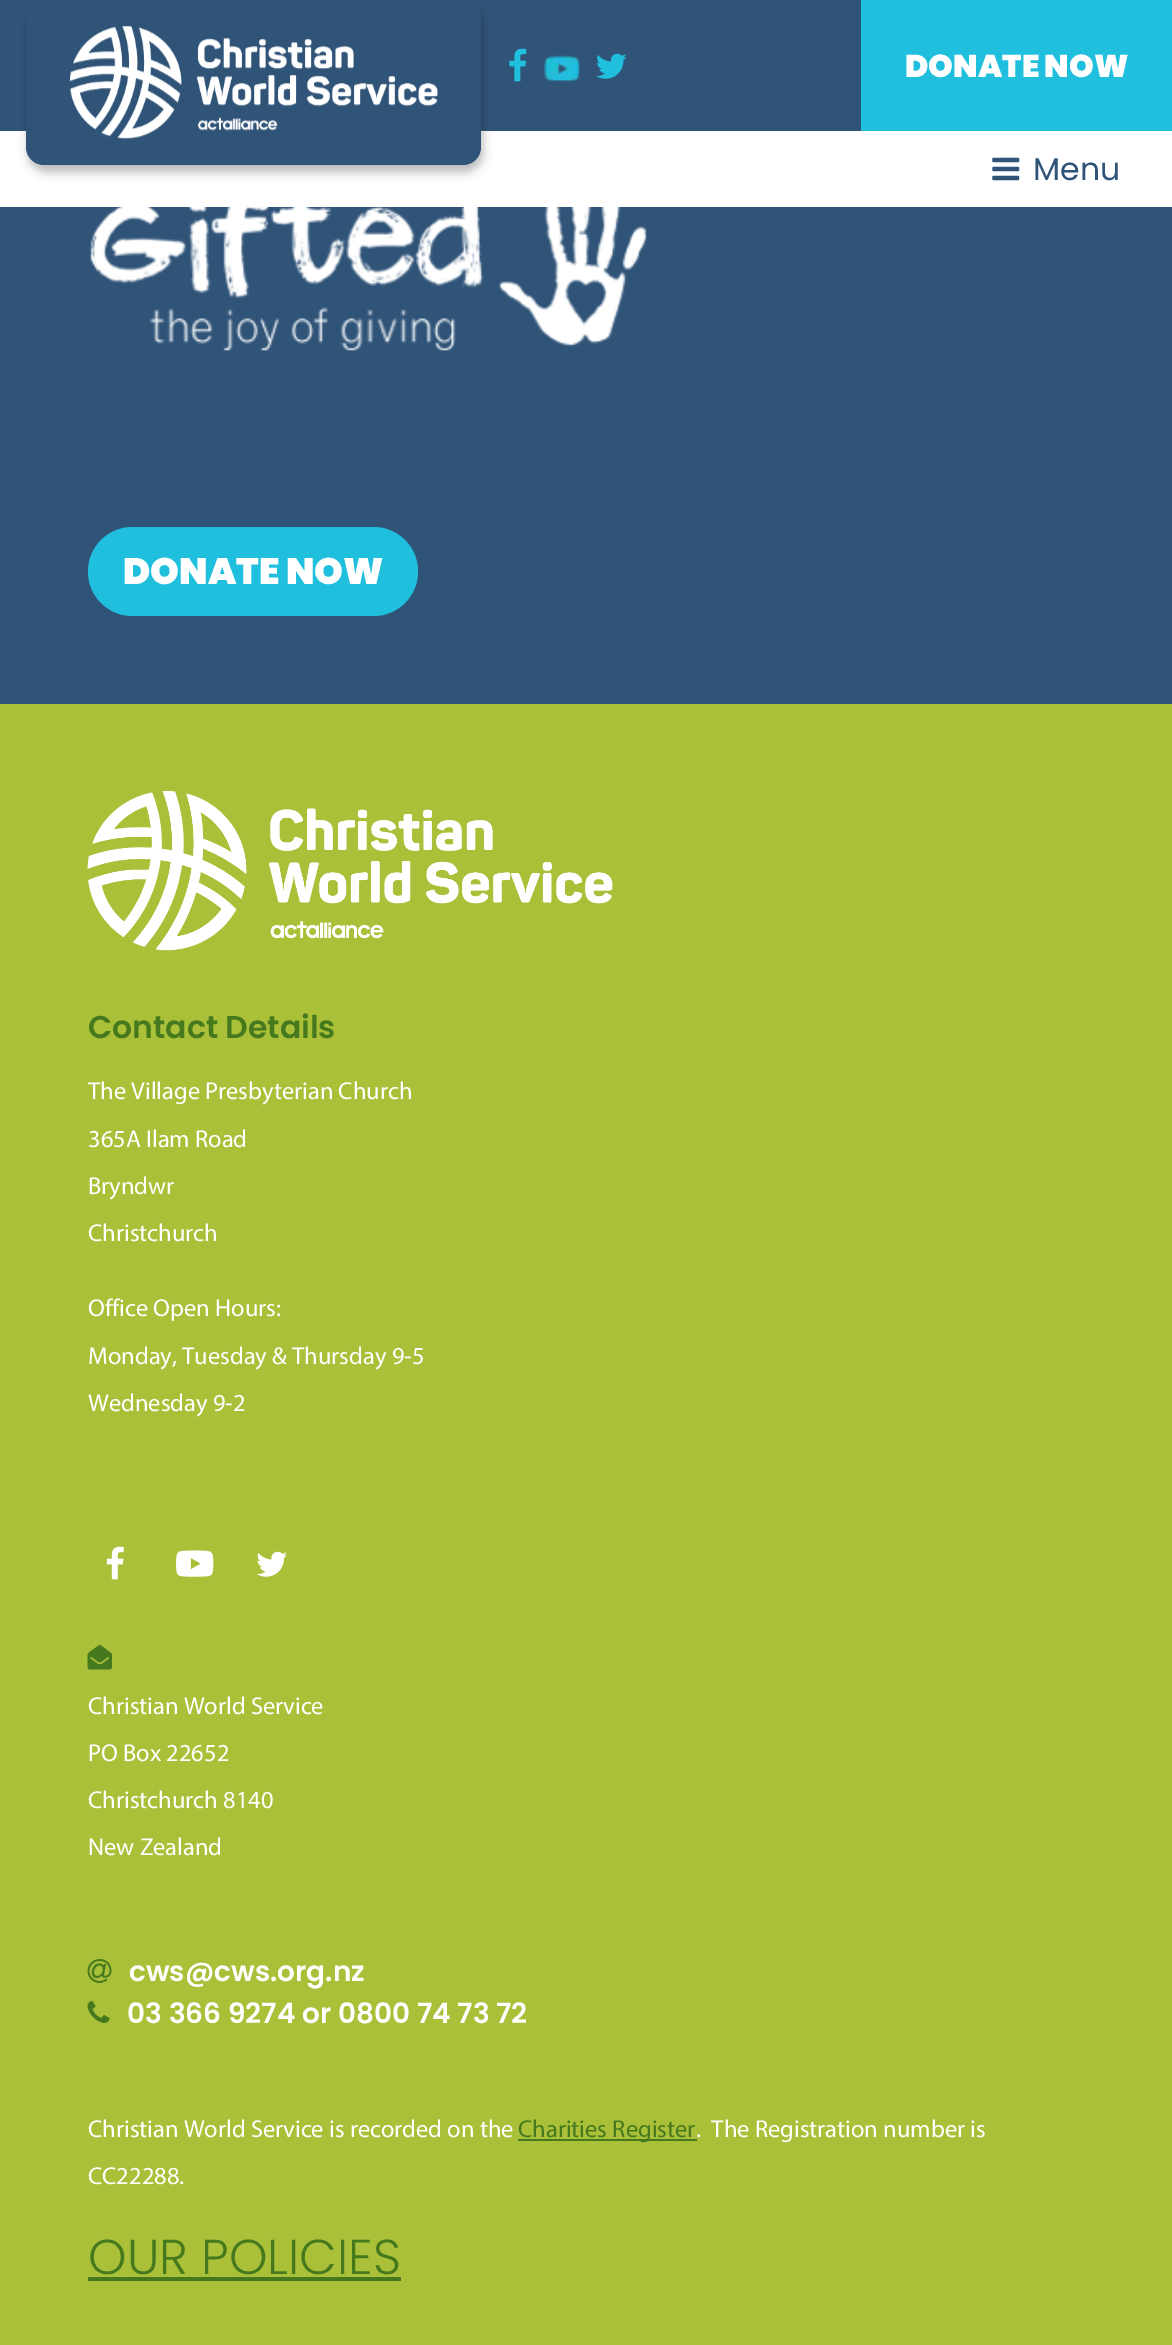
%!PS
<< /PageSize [1172 2345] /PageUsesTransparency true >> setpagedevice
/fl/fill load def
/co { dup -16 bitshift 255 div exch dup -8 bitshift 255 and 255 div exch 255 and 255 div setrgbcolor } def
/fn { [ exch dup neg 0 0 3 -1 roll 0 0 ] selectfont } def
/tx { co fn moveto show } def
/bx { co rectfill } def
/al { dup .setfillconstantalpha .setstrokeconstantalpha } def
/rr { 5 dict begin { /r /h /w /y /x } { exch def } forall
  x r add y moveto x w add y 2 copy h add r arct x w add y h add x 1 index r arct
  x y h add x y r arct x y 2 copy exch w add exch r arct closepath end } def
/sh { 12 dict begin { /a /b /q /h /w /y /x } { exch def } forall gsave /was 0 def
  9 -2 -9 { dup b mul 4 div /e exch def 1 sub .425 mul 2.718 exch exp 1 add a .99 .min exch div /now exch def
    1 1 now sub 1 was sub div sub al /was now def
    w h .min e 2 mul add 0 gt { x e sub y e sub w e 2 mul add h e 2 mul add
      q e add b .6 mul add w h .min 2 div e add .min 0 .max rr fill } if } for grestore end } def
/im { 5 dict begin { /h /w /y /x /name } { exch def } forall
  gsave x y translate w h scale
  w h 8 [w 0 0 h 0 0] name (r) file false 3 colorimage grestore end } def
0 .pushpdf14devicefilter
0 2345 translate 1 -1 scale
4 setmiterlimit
0 0 1172 2345 16#305478 bx
0 131 1172 76 16#FFFFFF bx
16#131313 co
28 7 455 165 18 5 .3 sh
16#305478 co
26 0 455 165 18 rr fl
(media/1.raw) 70 26 368 113 im
(media/2.raw) 509 48 18 34 im
(media/3.raw) 544 55 36 27 im
(media/4.raw) 596 53 31 26 im
861 0 311 131 16#20BFDD bx
(media/5.raw) 992 157 28 24 im
(media/6.raw) 90 207 557 144 im
88 527 330 89 44.5 rr fl
0 704 1172 1641 16#A9C038 bx
(media/7.raw) 87 791 526 160 im
(media/8.raw) 106 1546 18 34 im
(media/9.raw) 176 1550 38 27 im
(media/10.raw) 256 1551 31 26 im
(media/11.raw) 87 1645 25 25 im
(media/12.raw) 87 1959 25 24 im
(media/13.raw) 87 2001 23 22 im
518 2139 179 2 16#46791D bx
88 2277 313 4 16#46791D bx
(DONATE NOW) 905 77 /Poppins-Black 31.5 16#FFFFFF tx
(Menu) 1033 180 /Poppins-Regular 31.5 16#305478 tx
(DONATE NOW) 123 584 /Poppins-Black 36.75 16#FFFFFF tx
(Contact Details) 88 1038 /Poppins-SemiBold 31.5 16#46791D tx
(The Village Presbyterian Church) 88 1099 /Myriad-Regular 24.5 16#FFFFFF tx
(365A Ilam Road) 88 1147 /Myriad-Regular 24.5 16#FFFFFF tx
(Bryndwr) 88 1194 /Myriad-Regular 24.5 16#FFFFFF tx
(Christchurch) 88 1241 /Myriad-Regular 24.5 16#FFFFFF tx
(Office Open Hours:) 88 1316 /Myriad-Regular 24.5 16#FFFFFF tx
(Monday, Tuesday & Thursday 9-5) 88 1364 /Myriad-Regular 24.5 16#FFFFFF tx
(Wednesday 9-2) 88 1411 /Myriad-Regular 24.5 16#FFFFFF tx
(Christian World Service) 88 1714 /Myriad-Regular 24.5 16#FFFFFF tx
(PO Box 22652) 88 1761 /Myriad-Regular 24.5 16#FFFFFF tx
(Christchurch 8140) 88 1808 /Myriad-Regular 24.5 16#FFFFFF tx
(New Zealand) 88 1855 /Myriad-Regular 24.5 16#FFFFFF tx
(cws@cws.org.nz) 129 1981 /Poppins-SemiBold 28 16#FFFFFF tx
(03 366 9274 or 0800 74 73 72) 127 2023 /Poppins-SemiBold 28 16#FFFFFF tx
(Christian World Service is recorded on the) 88 2137 /Myriad-Regular 24.5 16#FFFFFF tx
(Charities Register) 518 2137 /Myriad-Regular 24.5 16#46791D tx
(.  The Registration number is) 696 2137 /Myriad-Regular 24.5 16#FFFFFF tx
(CC22288.) 88 2184 /Myriad-Regular 24.5 16#FFFFFF tx
(OUR POLICIES) 88 2274 /Poppins-Light 49 16#46791D tx
.poppdf14devicefilter showpage
